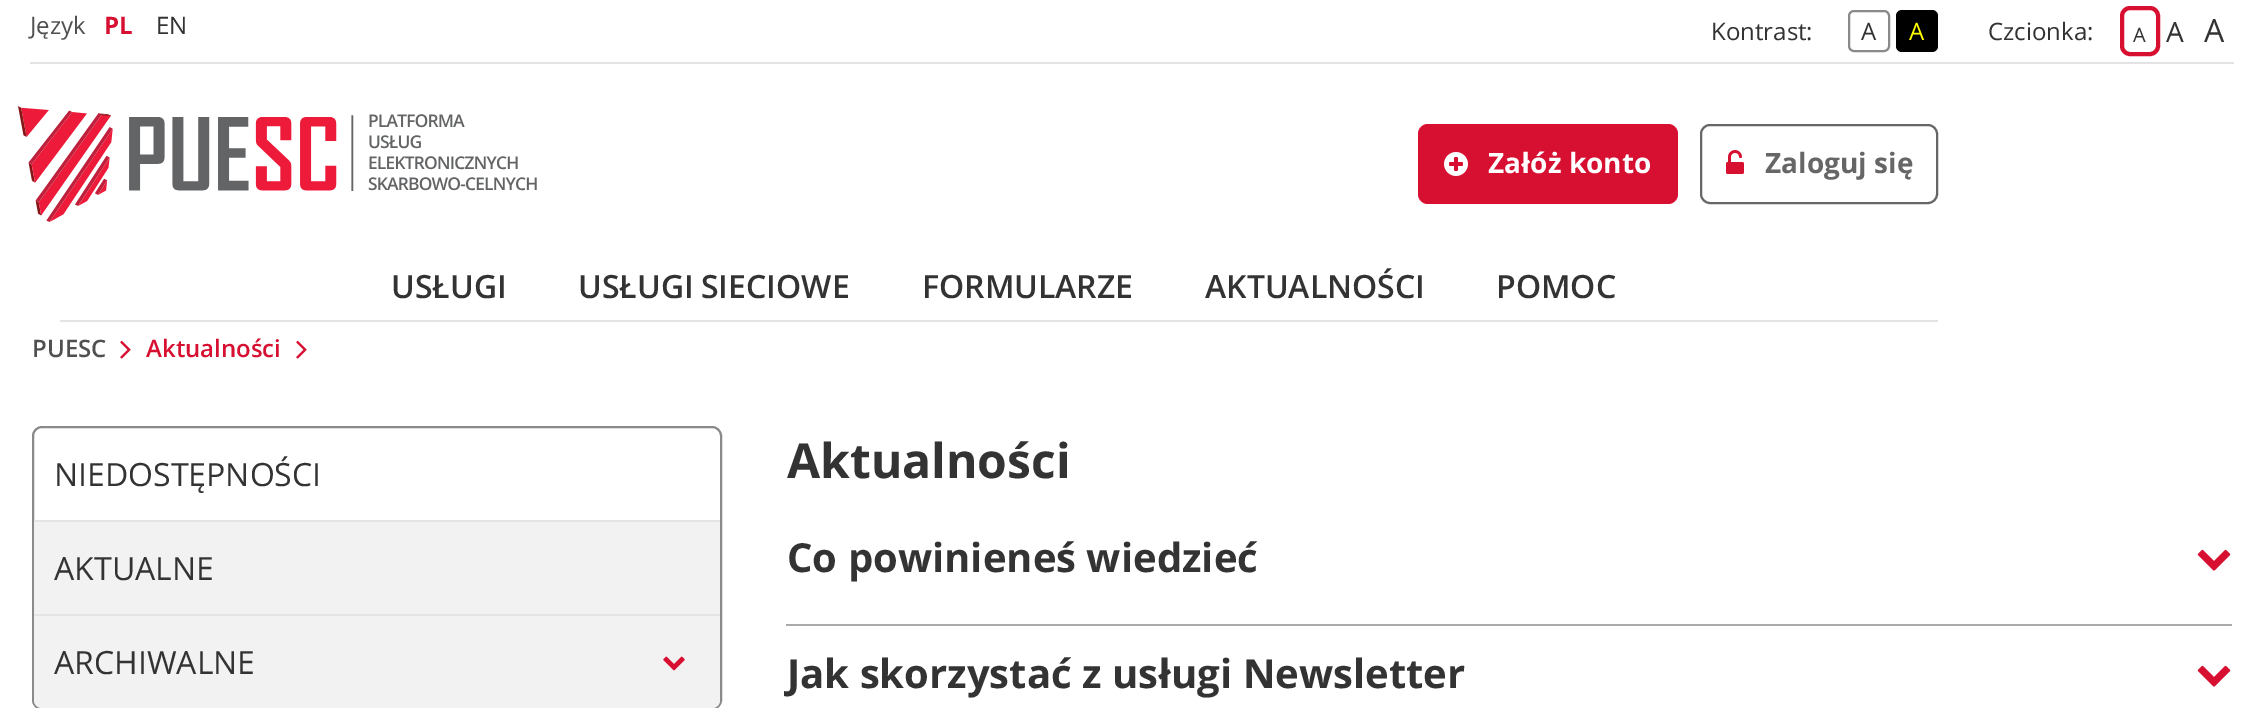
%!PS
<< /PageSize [2264 708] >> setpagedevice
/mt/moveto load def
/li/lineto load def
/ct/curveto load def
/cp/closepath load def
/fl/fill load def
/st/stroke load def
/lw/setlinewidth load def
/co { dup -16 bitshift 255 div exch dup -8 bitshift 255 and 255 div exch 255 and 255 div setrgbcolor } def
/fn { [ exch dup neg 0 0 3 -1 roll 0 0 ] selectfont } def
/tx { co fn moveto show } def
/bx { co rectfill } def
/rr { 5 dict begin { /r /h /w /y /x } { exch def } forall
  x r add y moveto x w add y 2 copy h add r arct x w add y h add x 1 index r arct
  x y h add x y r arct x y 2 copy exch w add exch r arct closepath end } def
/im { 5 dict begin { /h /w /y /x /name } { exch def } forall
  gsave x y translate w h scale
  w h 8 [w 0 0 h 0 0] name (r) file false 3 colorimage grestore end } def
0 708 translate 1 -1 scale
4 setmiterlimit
0 0 2264 708 16#FFFFFF bx
30 62 2204 2 16#E4E4E4 bx
16#8A8A8A co
2 lw
1849 11 40 40 5 rr st
16#000000 co
1896 10 42 42 6 rr fl
16#D70F31 co
4 lw
2122 8 36 46 8 rr st
(media/1.raw) 18 106 519 116 im
1418 124 260 80 10 rr fl
(media/2.raw) 1444 152 24 24 im
16#666666 co
2 lw
1701 125 236 78 9 rr st
(media/3.raw) 1726 150 18 24 im
60 320 1878 2 16#E4E4E4 bx
(media/4.raw) 120 340 11 19 im
(media/4.raw) 296 340 11 19 im
16#8A8A8A co
33 427 688 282 9 rr st
34 520 686 2 16#E4E4E4 bx
34 522 686 92 16#F2F2F2 bx
34 614 686 2 16#E4E4E4 bx
16#F2F2F2 co
34 616 mt 720 616 li 720 700 li 720 704.5 716.5 708 712 708 ct 42 708 li 37.5 708 34 704.5 34 700 ct cp fl
(media/5.raw) 663 656 22 15 im
786 624 1446 2 16#AAAAAA bx
(media/6.raw) 2197 549 34 22 im
(media/6.raw) 2197 665 34 22 im
(Język) 30 34 /OpenSans-Regular 24 16#505050 tx
(PL) 104 34 /OpenSans-Bold 24 16#D70F31 tx
(EN) 156 34 /OpenSans-Regular 24 16#333333 tx
(Kontrast:) 1711 40 /OpenSans-Regular 24 16#333333 tx
(A) 1861 40 /OpenSans-Regular 24 16#333333 tx
(A) 1909 40 /OpenSans-Regular 24 16#FFFF00 tx
(Czcionka:) 1988 40 /OpenSans-Regular 24 16#333333 tx
(A) 2133 42 /OpenSans-Regular 20 16#333333 tx
(A) 2166 42 /OpenSans-Regular 28 16#333333 tx
(A) 2204 42 /OpenSans-Regular 32 16#333333 tx
(Załóż konto) 1488 173 /OpenSans-Bold 28 16#FFFFFF tx
(Zaloguj się) 1765 173 /OpenSans-Bold 28 16#666666 tx
(USŁUGI) 391 298 /OpenSans-SemiBold 32 16#333333 tx
578 298 mt -1 0 32 (USŁUGI SIECIOWE) widthshow
(FORMULARZE) 922 298 /OpenSans-SemiBold 32 16#333333 tx
(AKTUALNOŚCI) 1205 298 /OpenSans-SemiBold 32 16#333333 tx
(POMOC) 1496 298 /OpenSans-SemiBold 32 16#333333 tx
(PUESC) 32 357 /OpenSans-SemiBold 24 16#505050 tx
(Aktualności) 146 357 /OpenSans-SemiBold 24 16#D70F31 tx
(NIEDOSTĘPNOŚCI) 54 486 /OpenSans-Regular 32 16#333333 tx
(AKTUALNE) 54 580 /OpenSans-Regular 32 16#333333 tx
(ARCHIWALNE) 54 674 /OpenSans-Regular 32 16#333333 tx
(Aktualności) 787 478 /OpenSans-Bold 48 16#333333 tx
(Co powinieneś wiedzieć) 787 572 /OpenSans-Bold 40 16#333333 tx
(Jak skorzystać z usługi Newsletter) 787 688 /OpenSans-Bold 40 16#333333 tx
showpage
